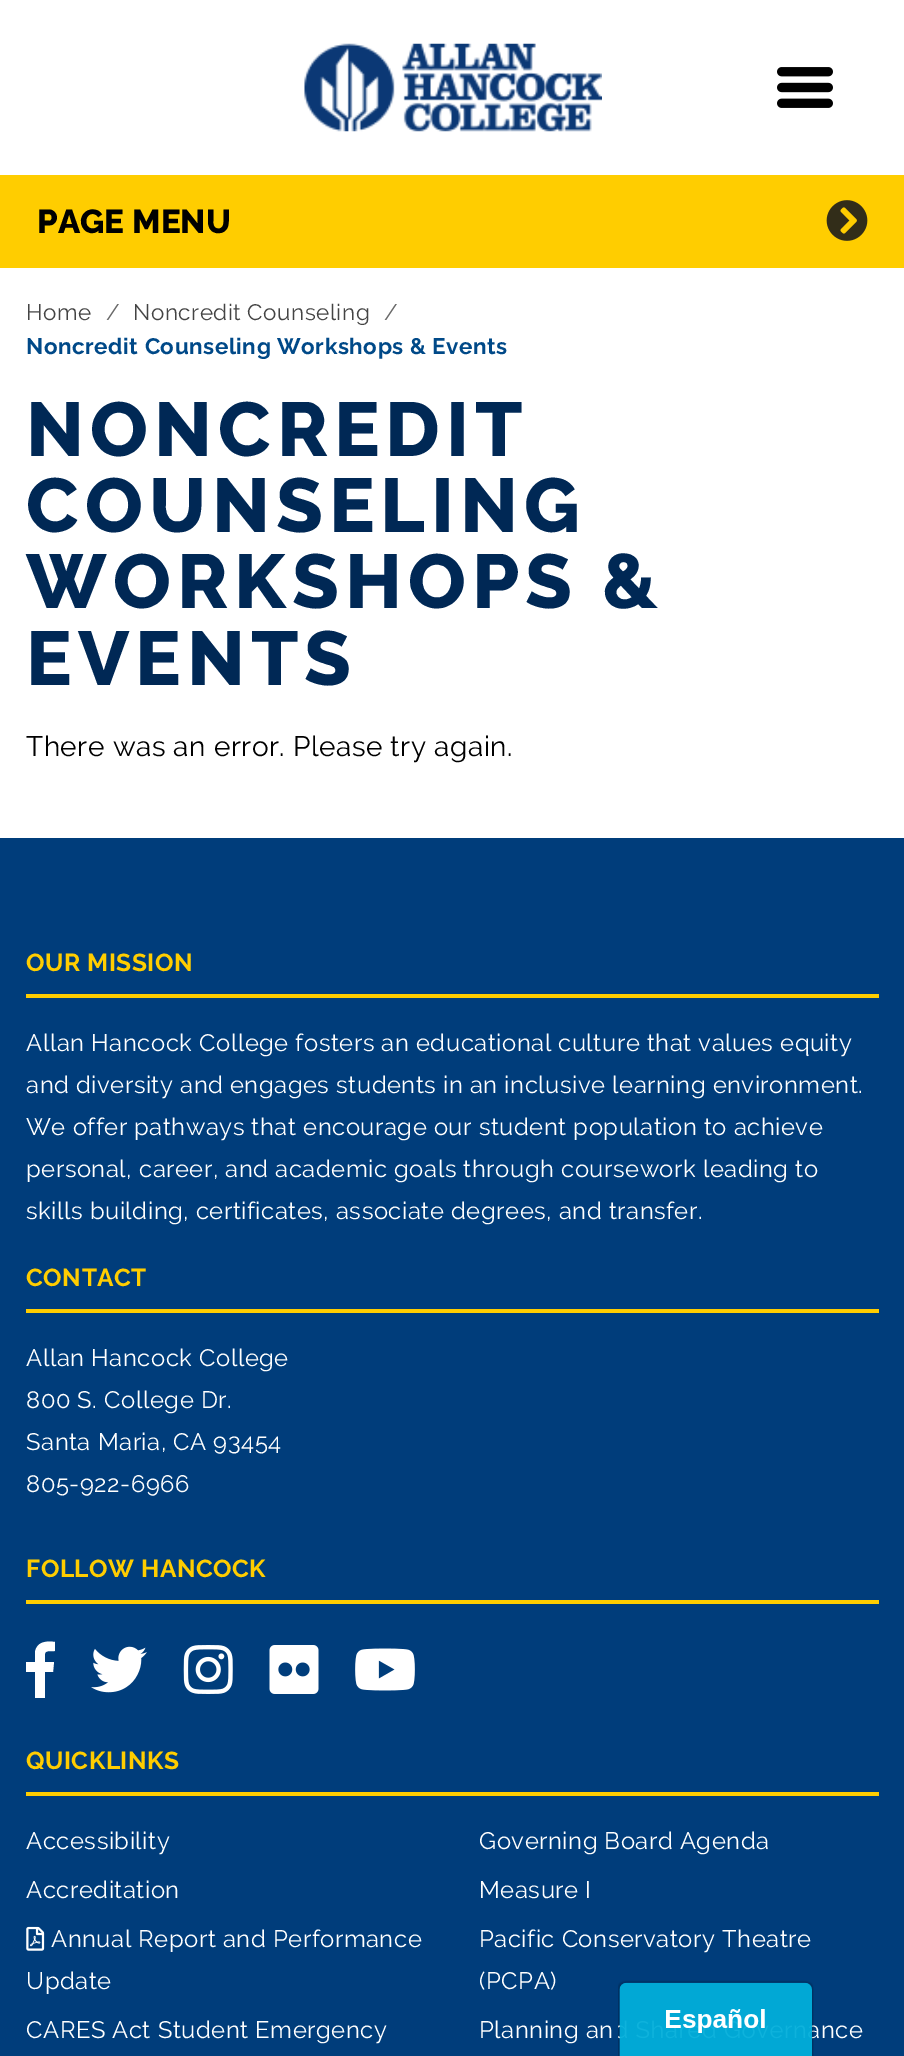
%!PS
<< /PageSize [904 2056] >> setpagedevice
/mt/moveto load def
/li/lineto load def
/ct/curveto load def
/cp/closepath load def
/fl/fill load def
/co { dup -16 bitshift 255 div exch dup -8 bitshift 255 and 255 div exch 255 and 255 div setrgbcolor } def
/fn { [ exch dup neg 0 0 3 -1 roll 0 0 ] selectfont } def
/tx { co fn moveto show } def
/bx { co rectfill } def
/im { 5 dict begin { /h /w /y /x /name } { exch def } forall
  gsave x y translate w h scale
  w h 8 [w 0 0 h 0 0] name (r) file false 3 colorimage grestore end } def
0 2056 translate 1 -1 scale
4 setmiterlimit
0 0 904 2056 16#FFFFFF bx
(media/1.raw) 304 43 298 89 im
(media/2.raw) 777 67 56 41 im
0 175 904 93 16#FFCD00 bx
(media/3.raw) 826 200 42 41 im
0 838 904 1218 16#003D7B bx
26 994 853 4 16#FFCD00 bx
26 1309 853 4 16#FFCD00 bx
26 1600 853 4 16#FFCD00 bx
16#FFFFFF co
35 1698 mt 35 1672 li 26 1672 li 26 1662 li 35 1662 li 35 1652 li 37 1641 47 1641 55 1642 ct 55 1651 li 43 1651 45 1651 45 1662 ct 54 1662 li 53 1672 li 45 1672 li 45 1698 li cp fl
(media/4.raw) 91 1646 56 47 im
(media/5.raw) 183 1645 50 49 im
(media/6.raw) 269 1645 50 49 im
(media/7.raw) 355 1648 60 43 im
26 1792 853 4 16#FFCD00 bx
(media/8.raw) 26 1926 19 25 im
(PAGE MENU) 37 233 /Raleway-ExtraBold 33.25 16#000000 tx
/Raleway-Regular 22.4 fn
16#696969 co
106 320 mt .55 0 (/) ashow
16#444444 co
133 320 mt .55 0 (Noncredit Counseling) ashow
16#696969 co
384 320 mt .55 0 (/) ashow
/Raleway-Bold 22.4 fn
16#004988 co
26 354 mt .55 0 (Noncredit Counseling Workshops & Events) ashow
/Raleway-Regular 22.4 fn
16#444444 co
26 320 mt .55 0 (Home) ashow
/Raleway-ExtraBold 76.25 fn
16#002855 co
26 456 mt 6.1 0 (NONCREDIT) ashow
26 532 mt 6.1 0 (COUNSELING) ashow
26 608 mt 6.1 0 (WORKSHOPS &) ashow
26 685 mt 6.1 0 (EVENTS) ashow
/Raleway-Regular 28 fn
16#000000 co
26 756 mt .55 0 (There was an error. Please try again.) ashow
/Raleway-Bold 24.5 fn
16#FFCD00 co
26 971 mt .5 0 (OUR MISSION) ashow
/Raleway-Regular 23.8 fn
16#FFFFFF co
26 1051 mt .55 0 (Allan Hancock College fosters an educational culture that values equity) ashow
26 1093 mt .55 0 (and diversity and engages students in an inclusive learning environment.) ashow
26 1135 mt .55 0 (We offer pathways that encourage our student population to achieve) ashow
26 1177 mt .55 0 (personal, career, and academic goals through coursework leading to) ashow
26 1219 mt .55 0 (skills building, certificates, associate degrees, and transfer.) ashow
/Raleway-Bold 24.5 fn
16#FFCD00 co
26 1286 mt .5 0 (CONTACT) ashow
/Raleway-Regular 23.8 fn
16#FFFFFF co
26 1366 mt .55 0 (Allan Hancock College) ashow
26 1408 mt .55 0 (800 S. College Dr.) ashow
26 1450 mt .55 0 (Santa Maria, CA 93454) ashow
26 1492 mt .55 0 (805-922-6966) ashow
/Raleway-Bold 24.5 fn
16#FFCD00 co
26 1577 mt .5 0 (FOLLOW HANCOCK) ashow
26 1769 mt .5 0 (QUICKLINKS) ashow
/Raleway-Regular 23.8 fn
16#FFFFFF co
26 1849 mt .55 0 (Accessibility) ashow
26 1898 mt .55 0 (Accreditation) ashow
51 1947 mt .55 0 (Annual Report and Performance) ashow
26 1989 mt .55 0 (Update) ashow
26 2038 mt .55 0 (CARES Act Student Emergency) ashow
479 1849 mt .55 0 (Governing Board Agenda) ashow
479 1898 mt .55 0 (Measure I) ashow
479 1947 mt .55 0 (Pacific Conservatory Theatre) ashow
479 1989 mt .55 0 (\(PCPA\)) ashow
479 2038 mt .55 0 (Planning an) ashow
807 2038 mt .55 0 (ance) ashow
(media/9.raw) 618 1980 196 76 im
showpage
